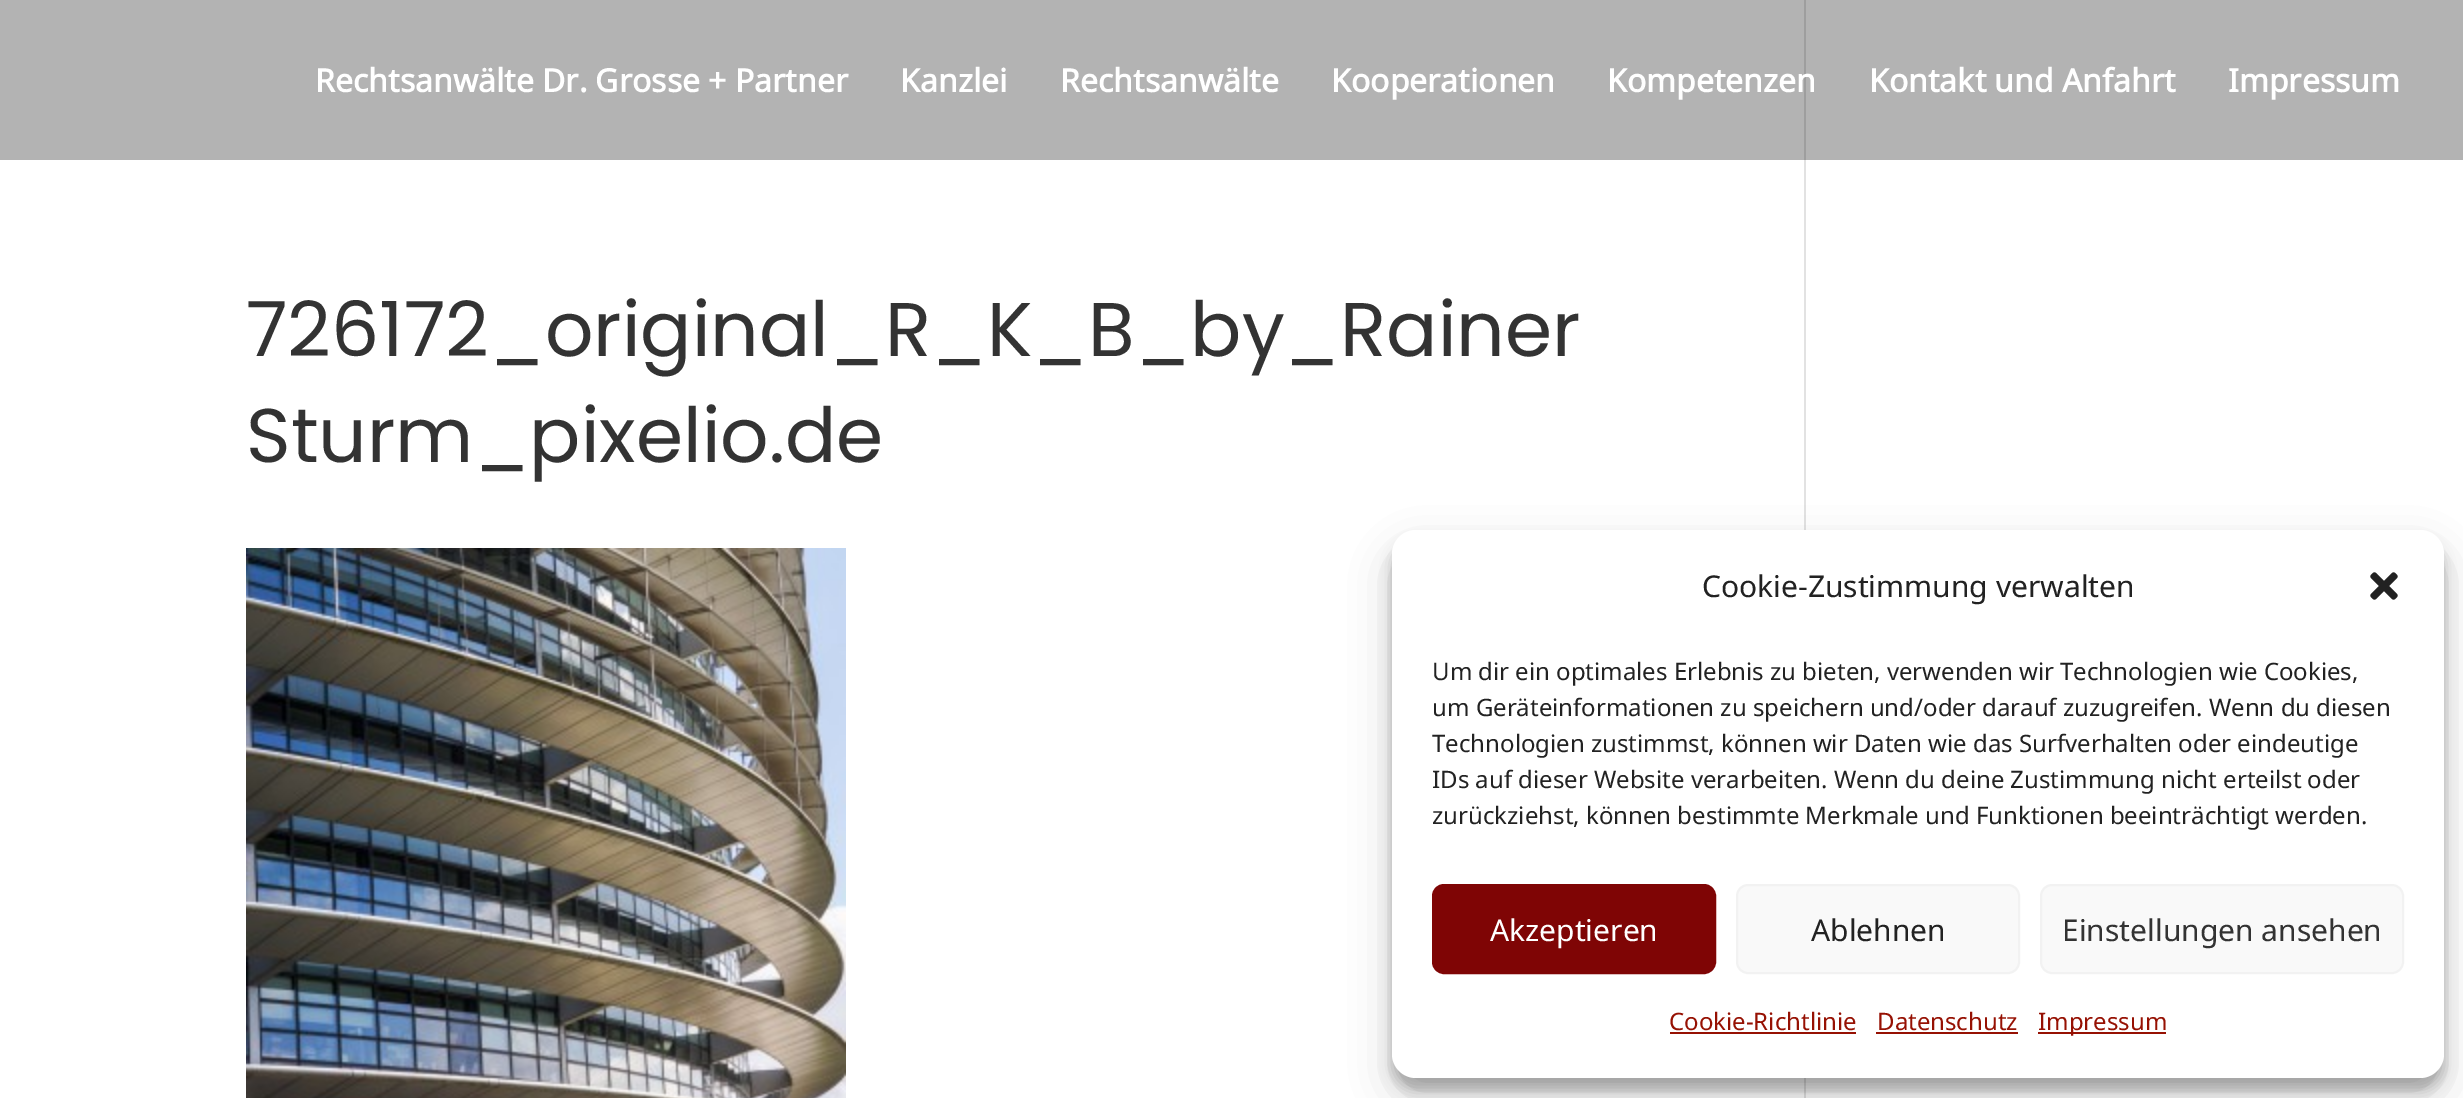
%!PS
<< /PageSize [2463 1098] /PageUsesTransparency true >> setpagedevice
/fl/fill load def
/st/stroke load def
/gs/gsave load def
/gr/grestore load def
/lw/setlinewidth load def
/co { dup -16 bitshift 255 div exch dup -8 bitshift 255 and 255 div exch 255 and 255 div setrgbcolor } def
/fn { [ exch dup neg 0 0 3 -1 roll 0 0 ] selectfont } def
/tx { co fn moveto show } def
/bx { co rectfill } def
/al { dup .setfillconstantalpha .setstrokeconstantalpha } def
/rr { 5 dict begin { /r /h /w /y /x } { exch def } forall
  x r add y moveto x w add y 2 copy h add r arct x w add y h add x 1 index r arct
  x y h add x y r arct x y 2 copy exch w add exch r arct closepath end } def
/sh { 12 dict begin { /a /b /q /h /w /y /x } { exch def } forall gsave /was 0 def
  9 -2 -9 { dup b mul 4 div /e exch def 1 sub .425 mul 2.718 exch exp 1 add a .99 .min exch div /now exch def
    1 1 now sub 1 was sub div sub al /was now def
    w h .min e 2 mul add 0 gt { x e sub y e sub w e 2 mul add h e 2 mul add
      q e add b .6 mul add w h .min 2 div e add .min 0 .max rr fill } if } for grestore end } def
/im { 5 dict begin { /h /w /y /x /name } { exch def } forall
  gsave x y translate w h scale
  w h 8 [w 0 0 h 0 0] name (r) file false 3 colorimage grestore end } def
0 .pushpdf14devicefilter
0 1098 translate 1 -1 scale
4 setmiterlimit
0 0 2463 1098 16#FFFFFF bx
0 0 2463 160 16#B3B3B3 bx
(media/1.raw) 246 548 600 550 im
1804 160 2 938 16#E2E2E2 bx
1804 0 2 160 16#9E9E9E bx
16#000000 co
1392 542 1052 548 24 6 .23 sh
1392 550 1052 548 24 20 .19 sh
16#FFFFFF co
1392 530 1052 548 24 rr fl
(media/2.raw) 2370 572 28 28 im
16#7F0505 co
1433 885 282 88 11 rr gs fl gr
2 lw
st
16#F9F9F9 co
1737 885 282 88 11 rr gs fl gr
16#F2F2F2 co
st
16#F9F9F9 co
2041 885 362 88 11 rr gs fl gr
16#F2F2F2 co
st
1670 1032 186 2 16#961103 bx
1876 1032 142 2 16#961103 bx
2038 1032 128 2 16#961103 bx
(Rechtsanwälte Dr. Grosse + Partner) 315 92 /NotoSans-Bold 32 16#FFFFFF tx
(Kanzlei) 900 92 /NotoSans-Bold 32 16#FFFFFF tx
(Rechtsanwälte) 1060 92 /NotoSans-Bold 32 16#FFFFFF tx
(Kooperationen) 1331 92 /NotoSans-Bold 32 16#FFFFFF tx
(Kompetenzen) 1607 92 /NotoSans-Bold 32 16#FFFFFF tx
(Kontakt und Anfahrt) 1869 92 /NotoSans-Bold 32 16#FFFFFF tx
(Impressum) 2228 92 /NotoSans-Bold 32 16#FFFFFF tx
(726172_original_R_K_B_by_Rainer) 246 356 /Poppins-Regular 76 16#333333 tx
(Sturm_pixelio.de) 246 462 /Poppins-Regular 76 16#333333 tx
(Cookie-Zustimmung verwalten) 1702 597 /NotoSans-Regular 30 16#222222 tx
(Um dir ein optimales Erlebnis zu bieten, verwenden wir Technologien wie Cookies,) 1432 680 /NotoSans-Regular 24 16#222222 tx
(um Geräteinformationen zu speichern und/oder darauf zuzugreifen. Wenn du diesen) 1432 716 /NotoSans-Regular 24 16#222222 tx
(Technologien zustimmst, können wir Daten wie das Surfverhalten oder eindeutige) 1432 752 /NotoSans-Regular 24 16#222222 tx
(IDs auf dieser Website verarbeiten. Wenn du deine Zustimmung nicht erteilst oder) 1432 788 /NotoSans-Regular 24 16#222222 tx
(zurückziehst, können bestimmte Merkmale und Funktionen beeinträchtigt werden.) 1432 824 /NotoSans-Regular 24 16#222222 tx
(Akzeptieren) 1490 941 /NotoSans-Regular 30 16#FFFFFF tx
(Ablehnen) 1811 941 /NotoSans-Regular 30 16#222222 tx
(Einstellungen ansehen) 2062 941 /NotoSans-Regular 30 16#333333 tx
(Cookie-Richtlinie) 1669 1030 /NotoSans-Regular 24 16#961103 tx
(Datenschutz) 1877 1030 /NotoSans-Regular 24 16#961103 tx
(Impressum) 2038 1030 /NotoSans-Regular 24 16#961103 tx
.poppdf14devicefilter showpage
